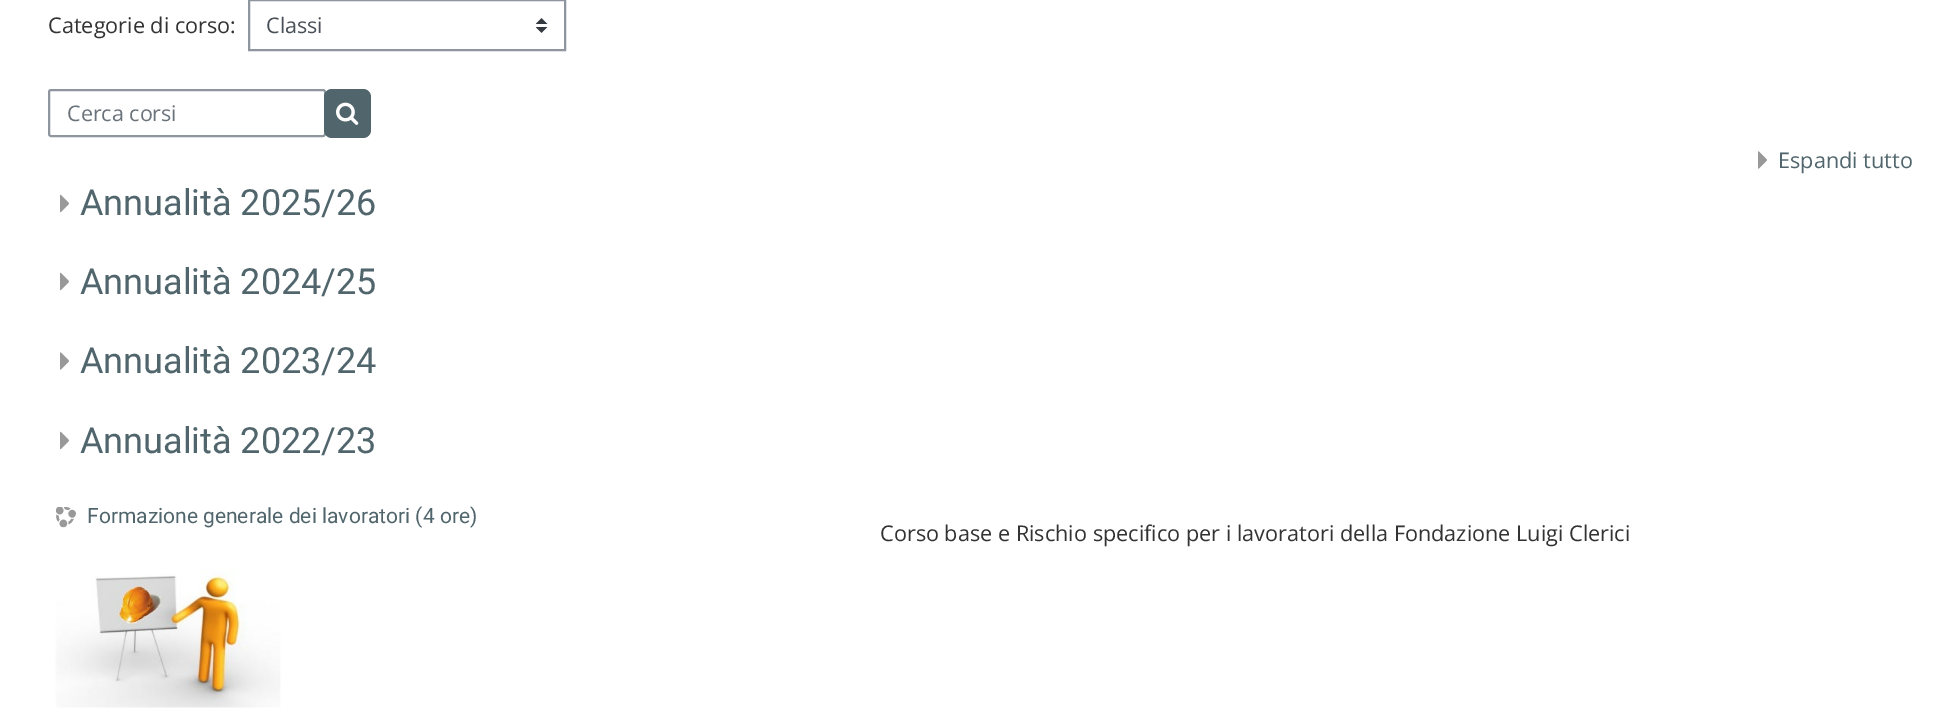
%!PS
<< /PageSize [1960 727] >> setpagedevice
/fl/fill load def
/st/stroke load def
/lw/setlinewidth load def
/co { dup -16 bitshift 255 div exch dup -8 bitshift 255 and 255 div exch 255 and 255 div setrgbcolor } def
/fn { [ exch dup neg 0 0 3 -1 roll 0 0 ] selectfont } def
/tx { co fn moveto show } def
/bx { co rectfill } def
/rr { 5 dict begin { /r /h /w /y /x } { exch def } forall
  x r add y moveto x w add y 2 copy h add r arct x w add y h add x 1 index r arct
  x y h add x y r arct x y 2 copy exch w add exch r arct closepath end } def
/im { 5 dict begin { /h /w /y /x /name } { exch def } forall
  gsave x y translate w h scale
  w h 8 [w 0 0 h 0 0] name (r) file false 3 colorimage grestore end } def
0 727 translate 1 -1 scale
4 setmiterlimit
0 0 1960 727 16#FFFFFF bx
(media/1.raw) 536 18 12 15 im
16#8F959E co
2 lw
249 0 316 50 rectstroke
49 90 276 46 2 rr st
16#51666C co
324 89 47 49 8 rr fl
(media/2.raw) 336 102 23 23 im
(media/3.raw) 1758 151 9 18 im
(media/4.raw) 60 194 9 19 im
(media/4.raw) 60 272 9 19 im
(media/3.raw) 60 352 9 18 im
(media/4.raw) 60 431 9 19 im
(media/5.raw) 56 507 20 21 im
(media/6.raw) 55 569 226 139 im
(Categorie di corso:) 48 33 /OpenSans-Regular 21.65 16#333333 tx
(Classi) 266 33 /OpenSans-Regular 21.5 16#495057 tx
(Cerca corsi) 67 121 /OpenSans-Regular 21.5 16#6A737B tx
(Espandi tutto) 1778 168 /OpenSans-Regular 21.65 16#51666C tx
(Annualità 2025/26) 80 215 /Roboto-Regular 36 16#51666C tx
(Annualità 2024/25) 80 294 /Roboto-Regular 36 16#51666C tx
(Annualità 2023/24) 80 373 /Roboto-Regular 36 16#51666C tx
(Annualità 2022/23) 80 453 /Roboto-Regular 36 16#51666C tx
(Formazione generale dei lavoratori \(4 ore\)) 87 523 /Roboto-Regular 21 16#51666C tx
(Corso base e Rischio specifico per i lavoratori della Fondazione Luigi Clerici) 880 541 /OpenSans-Regular 21.65 16#333333 tx
showpage
